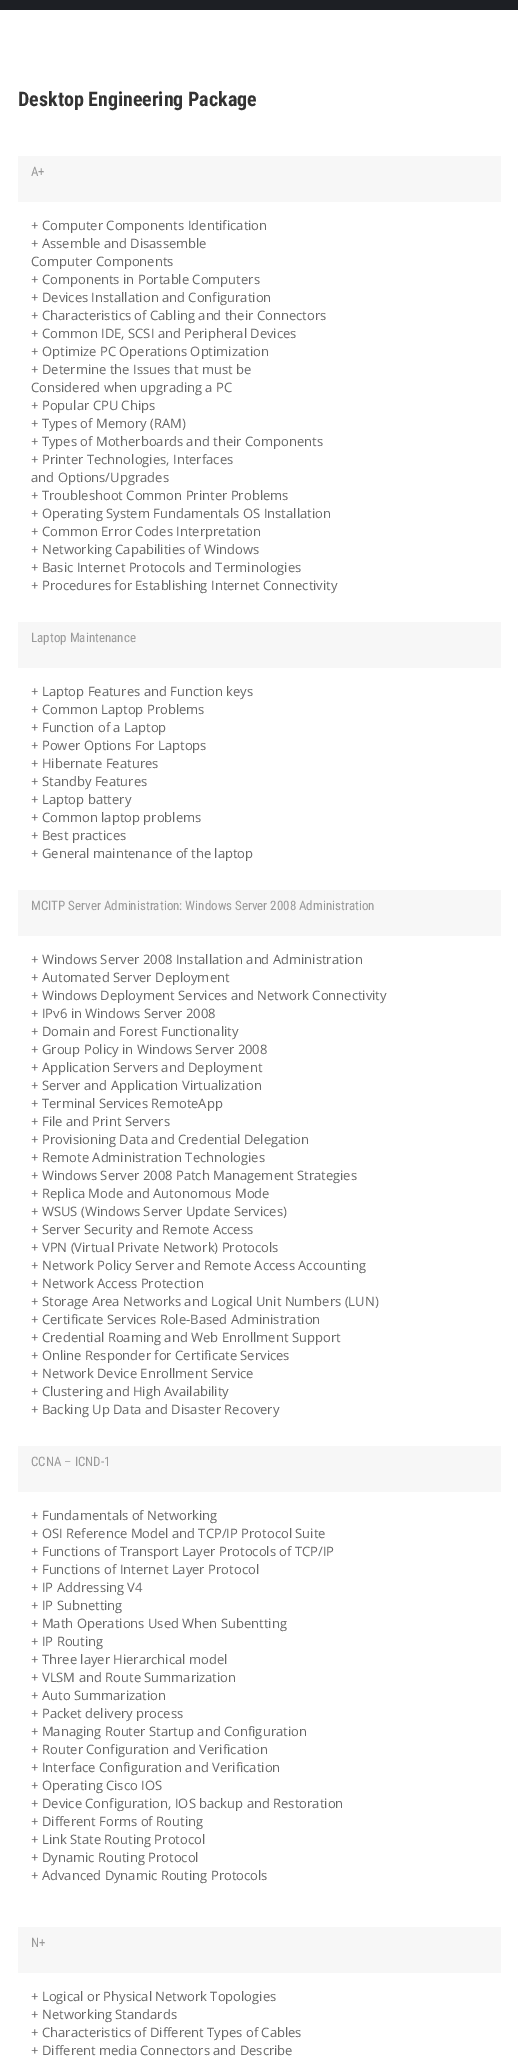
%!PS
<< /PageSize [518 2057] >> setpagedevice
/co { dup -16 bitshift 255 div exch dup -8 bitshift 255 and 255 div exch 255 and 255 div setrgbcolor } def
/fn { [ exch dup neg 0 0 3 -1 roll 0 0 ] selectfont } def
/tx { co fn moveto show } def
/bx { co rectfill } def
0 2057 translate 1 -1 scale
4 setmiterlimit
0 0 518 2057 16#FFFFFF bx
0 0 518 10 16#1D1F24 bx
18 156 483 46 16#F7F7F7 bx
18 622 483 46 16#F7F7F7 bx
18 890 483 46 16#F7F7F7 bx
18 1446 483 46 16#F7F7F7 bx
18 1927 483 46 16#F7F7F7 bx
(Desktop Engineering Package) 18 106 /RobotoCondensed-Bold 20 16#333333 tx
(A+) 31 176 /RobotoCondensed-Regular 13 16#999999 tx
(+ Computer Components Identification) 31 230 /OpenSans-Regular 13 16#666666 tx
(+ Assemble and Disassemble) 31 248 /OpenSans-Regular 13 16#666666 tx
(Computer Components) 31 266 /OpenSans-Regular 13 16#666666 tx
(+ Components in Portable Computers) 31 284 /OpenSans-Regular 13 16#666666 tx
(+ Devices Installation and Configuration) 31 302 /OpenSans-Regular 13 16#666666 tx
(+ Characteristics of Cabling and their Connectors) 31 320 /OpenSans-Regular 13 16#666666 tx
(+ Common IDE, SCSI and Peripheral Devices) 31 338 /OpenSans-Regular 13 16#666666 tx
(+ Optimize PC Operations Optimization) 31 356 /OpenSans-Regular 13 16#666666 tx
(+ Determine the Issues that must be) 31 374 /OpenSans-Regular 13 16#666666 tx
(Considered when upgrading a PC) 31 392 /OpenSans-Regular 13 16#666666 tx
(+ Popular CPU Chips) 31 410 /OpenSans-Regular 13 16#666666 tx
(+ Types of Memory \(RAM\)) 31 428 /OpenSans-Regular 13 16#666666 tx
(+ Types of Motherboards and their Components) 31 446 /OpenSans-Regular 13 16#666666 tx
(+ Printer Technologies, Interfaces) 31 464 /OpenSans-Regular 13 16#666666 tx
(and Options/Upgrades) 31 482 /OpenSans-Regular 13 16#666666 tx
(+ Troubleshoot Common Printer Problems) 31 500 /OpenSans-Regular 13 16#666666 tx
(+ Operating System Fundamentals OS Installation) 31 518 /OpenSans-Regular 13 16#666666 tx
(+ Common Error Codes Interpretation) 31 536 /OpenSans-Regular 13 16#666666 tx
(+ Networking Capabilities of Windows) 31 554 /OpenSans-Regular 13 16#666666 tx
(+ Basic Internet Protocols and Terminologies) 31 572 /OpenSans-Regular 13 16#666666 tx
(+ Procedures for Establishing Internet Connectivity) 31 590 /OpenSans-Regular 13 16#666666 tx
(Laptop Maintenance) 31 642 /RobotoCondensed-Regular 13 16#999999 tx
(+ Laptop Features and Function keys) 31 696 /OpenSans-Regular 13 16#666666 tx
(+ Common Laptop Problems) 31 714 /OpenSans-Regular 13 16#666666 tx
(+ Function of a Laptop) 31 732 /OpenSans-Regular 13 16#666666 tx
(+ Power Options For Laptops) 31 750 /OpenSans-Regular 13 16#666666 tx
(+ Hibernate Features) 31 768 /OpenSans-Regular 13 16#666666 tx
(+ Standby Features) 31 786 /OpenSans-Regular 13 16#666666 tx
(+ Laptop battery) 31 804 /OpenSans-Regular 13 16#666666 tx
(+ Common laptop problems) 31 822 /OpenSans-Regular 13 16#666666 tx
(+ Best practices) 31 840 /OpenSans-Regular 13 16#666666 tx
(+ General maintenance of the laptop) 31 858 /OpenSans-Regular 13 16#666666 tx
(MCITP Server Administration: Windows Server 2008 Administration) 31 910 /RobotoCondensed-Regular 13 16#999999 tx
(+ Windows Server 2008 Installation and Administration) 31 964 /OpenSans-Regular 13 16#666666 tx
(+ Automated Server Deployment) 31 982 /OpenSans-Regular 13 16#666666 tx
(+ Windows Deployment Services and Network Connectivity) 31 1000 /OpenSans-Regular 13 16#666666 tx
(+ IPv6 in Windows Server 2008) 31 1018 /OpenSans-Regular 13 16#666666 tx
(+ Domain and Forest Functionality) 31 1036 /OpenSans-Regular 13 16#666666 tx
(+ Group Policy in Windows Server 2008) 31 1054 /OpenSans-Regular 13 16#666666 tx
(+ Application Servers and Deployment) 31 1072 /OpenSans-Regular 13 16#666666 tx
(+ Server and Application Virtualization) 31 1090 /OpenSans-Regular 13 16#666666 tx
(+ Terminal Services RemoteApp) 31 1108 /OpenSans-Regular 13 16#666666 tx
(+ File and Print Servers) 31 1126 /OpenSans-Regular 13 16#666666 tx
(+ Provisioning Data and Credential Delegation) 31 1144 /OpenSans-Regular 13 16#666666 tx
(+ Remote Administration Technologies) 31 1162 /OpenSans-Regular 13 16#666666 tx
(+ Windows Server 2008 Patch Management Strategies) 31 1180 /OpenSans-Regular 13 16#666666 tx
(+ Replica Mode and Autonomous Mode) 31 1198 /OpenSans-Regular 13 16#666666 tx
(+ WSUS \(Windows Server Update Services\)) 31 1216 /OpenSans-Regular 13 16#666666 tx
(+ Server Security and Remote Access) 31 1234 /OpenSans-Regular 13 16#666666 tx
(+ VPN \(Virtual Private Network\) Protocols) 31 1252 /OpenSans-Regular 13 16#666666 tx
(+ Network Policy Server and Remote Access Accounting) 31 1270 /OpenSans-Regular 13 16#666666 tx
(+ Network Access Protection) 31 1288 /OpenSans-Regular 13 16#666666 tx
(+ Storage Area Networks and Logical Unit Numbers \(LUN\)) 31 1306 /OpenSans-Regular 13 16#666666 tx
(+ Certificate Services Role-Based Administration) 31 1324 /OpenSans-Regular 13 16#666666 tx
(+ Credential Roaming and Web Enrollment Support) 31 1342 /OpenSans-Regular 13 16#666666 tx
(+ Online Responder for Certificate Services) 31 1360 /OpenSans-Regular 13 16#666666 tx
(+ Network Device Enrollment Service) 31 1378 /OpenSans-Regular 13 16#666666 tx
(+ Clustering and High Availability) 31 1396 /OpenSans-Regular 13 16#666666 tx
(+ Backing Up Data and Disaster Recovery) 31 1414 /OpenSans-Regular 13 16#666666 tx
(CCNA – ICND-1) 31 1466 /RobotoCondensed-Regular 13 16#999999 tx
(+ Fundamentals of Networking) 31 1520 /OpenSans-Regular 13 16#666666 tx
(+ OSI Reference Model and TCP/IP Protocol Suite) 31 1538 /OpenSans-Regular 13 16#666666 tx
(+ Functions of Transport Layer Protocols of TCP/IP) 31 1556 /OpenSans-Regular 13 16#666666 tx
(+ Functions of Internet Layer Protocol) 31 1574 /OpenSans-Regular 13 16#666666 tx
(+ IP Addressing V4) 31 1592 /OpenSans-Regular 13 16#666666 tx
(+ IP Subnetting) 31 1610 /OpenSans-Regular 13 16#666666 tx
(+ Math Operations Used When Subentting) 31 1628 /OpenSans-Regular 13 16#666666 tx
(+ IP Routing) 31 1646 /OpenSans-Regular 13 16#666666 tx
(+ Three layer Hierarchical model) 31 1664 /OpenSans-Regular 13 16#666666 tx
(+ VLSM and Route Summarization) 31 1682 /OpenSans-Regular 13 16#666666 tx
(+ Auto Summarization) 31 1700 /OpenSans-Regular 13 16#666666 tx
(+ Packet delivery process) 31 1718 /OpenSans-Regular 13 16#666666 tx
(+ Managing Router Startup and Configuration) 31 1736 /OpenSans-Regular 13 16#666666 tx
(+ Router Configuration and Verification) 31 1754 /OpenSans-Regular 13 16#666666 tx
(+ Interface Configuration and Verification) 31 1772 /OpenSans-Regular 13 16#666666 tx
(+ Operating Cisco IOS) 31 1790 /OpenSans-Regular 13 16#666666 tx
(+ Device Configuration, IOS backup and Restoration) 31 1808 /OpenSans-Regular 13 16#666666 tx
(+ Different Forms of Routing) 31 1826 /OpenSans-Regular 13 16#666666 tx
(+ Link State Routing Protocol) 31 1844 /OpenSans-Regular 13 16#666666 tx
(+ Dynamic Routing Protocol) 31 1862 /OpenSans-Regular 13 16#666666 tx
(+ Advanced Dynamic Routing Protocols) 31 1880 /OpenSans-Regular 13 16#666666 tx
(N+) 31 1947 /RobotoCondensed-Regular 13 16#999999 tx
(+ Logical or Physical Network Topologies) 31 2001 /OpenSans-Regular 13 16#666666 tx
(+ Networking Standards) 31 2019 /OpenSans-Regular 13 16#666666 tx
(+ Characteristics of Different Types of Cables) 31 2037 /OpenSans-Regular 13 16#666666 tx
(+ Different media Connectors and Describe) 31 2055 /OpenSans-Regular 13 16#666666 tx
showpage
